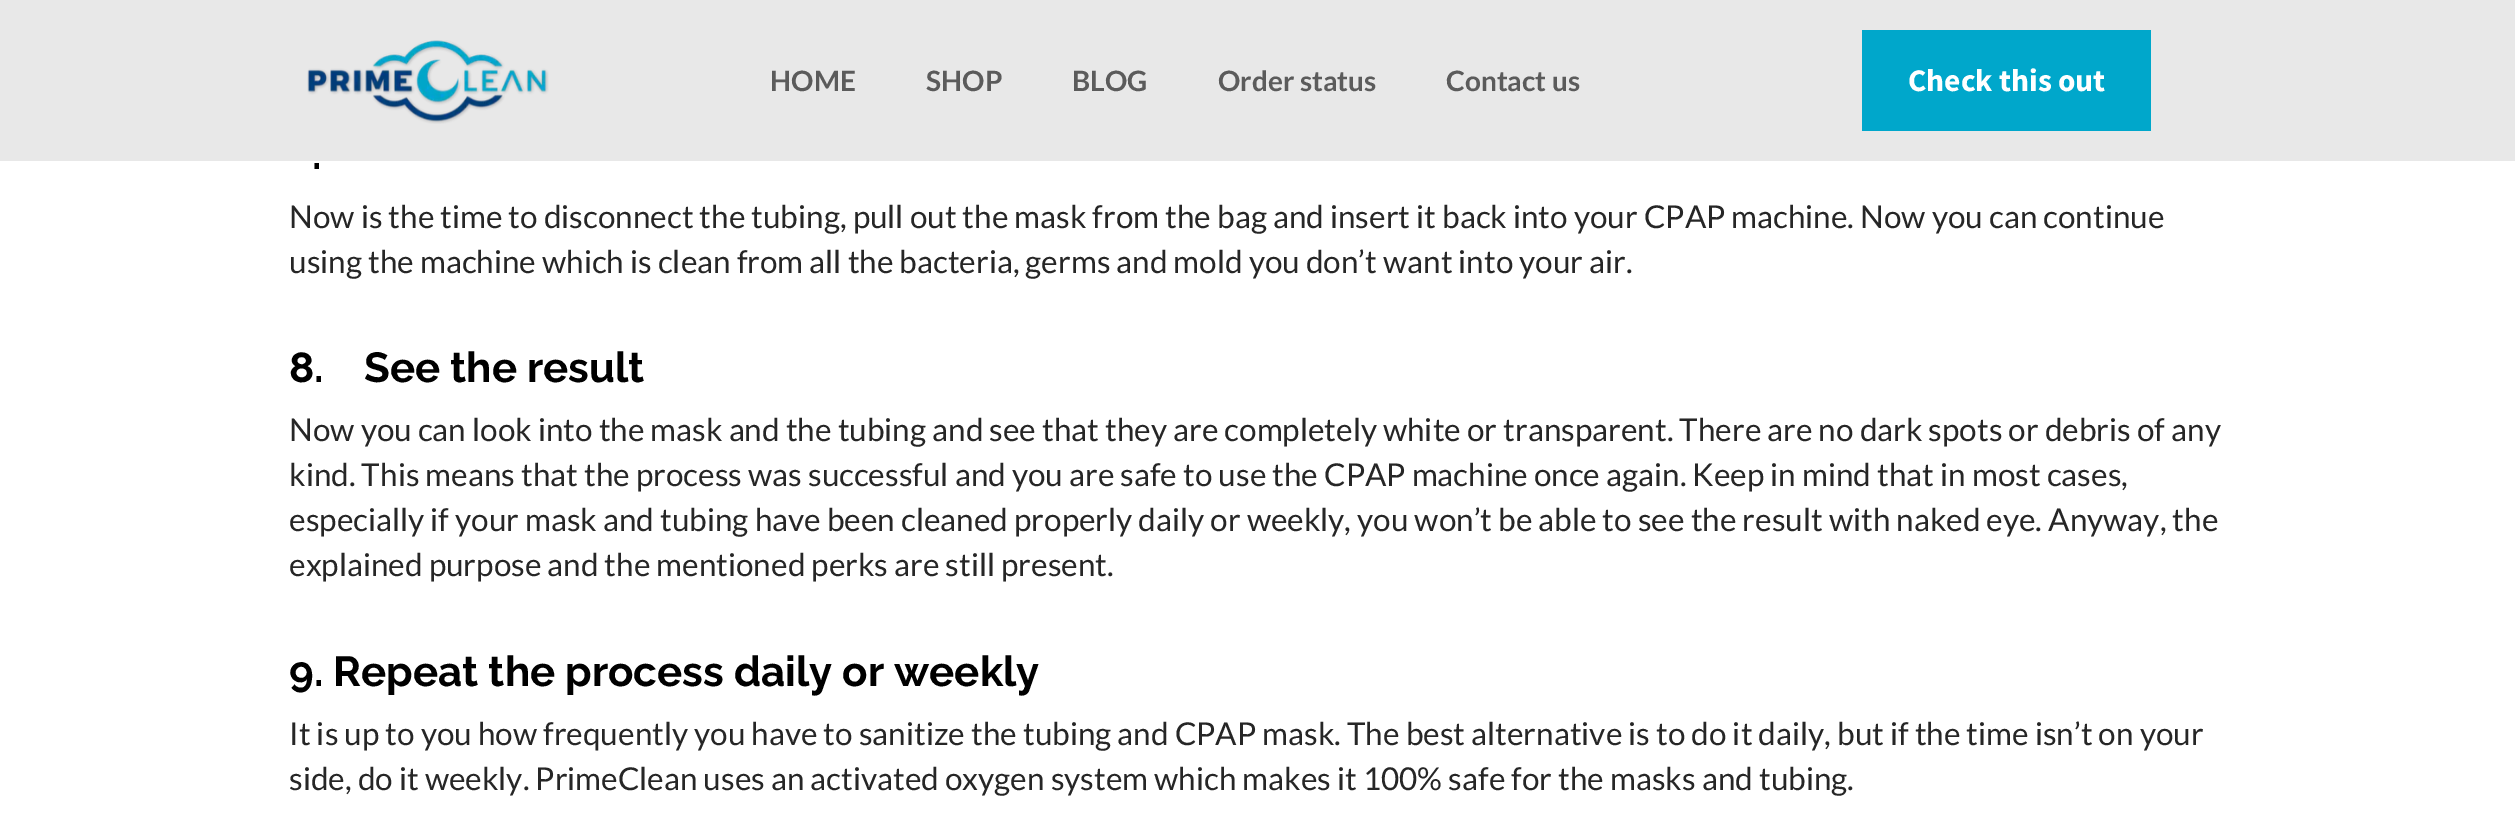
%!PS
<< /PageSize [2515 814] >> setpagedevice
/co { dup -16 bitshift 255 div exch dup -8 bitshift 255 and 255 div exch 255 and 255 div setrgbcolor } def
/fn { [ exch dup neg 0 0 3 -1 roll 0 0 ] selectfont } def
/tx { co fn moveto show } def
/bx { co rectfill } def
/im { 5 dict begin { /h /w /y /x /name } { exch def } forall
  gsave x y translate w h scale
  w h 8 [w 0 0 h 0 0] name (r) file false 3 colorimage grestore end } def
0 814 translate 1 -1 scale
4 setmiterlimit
0 0 2515 814 16#FFFFFF bx
0 0 2515 161 16#E8E8E8 bx
(media/1.raw) 307 40 242 84 im
1862 30 289 101 16#00A7CB bx
(HOME) 770 91 /Lato-Bold 28 16#5B5B5B tx
(SHOP) 926 91 /Lato-Bold 28 16#5B5B5B tx
(BLOG) 1072 91 /Lato-Bold 28 16#5B5B5B tx
(Order status) 1218 91 /Lato-Bold 28 16#5B5B5B tx
(Contact us) 1446 91 /Lato-Bold 28 16#5B5B5B tx
(Check this out) 1908 91 /SourceSansPro-Bold 31.5 16#FFFFFF tx
(.) 312 169 /Raleway-Bold 42 16#000000 tx
(Now is the time to disconnect the tubing, pull out the mask from the bag and insert it back into your CPAP machine. Now you can continue) 289 228 /Lato-Regular 31.5 16#262626 tx
(using the machine which is clean from all the bacteria, germs and mold you don’t want into your air.) 289 273 /Lato-Regular 31.5 16#262626 tx
(8.    See the result) 289 382 /Raleway-Bold 42 16#000000 tx
(Now you can look into the mask and the tubing and see that they are completely white or transparent. There are no dark spots or debris of any) 289 441 /Lato-Regular 31.5 16#262626 tx
(kind. This means that the process was successful and you are safe to use the CPAP machine once again. Keep in mind that in most cases,) 289 486 /Lato-Regular 31.5 16#262626 tx
(especially if your mask and tubing have been cleaned properly daily or weekly, you won’t be able to see the result with naked eye. Anyway, the) 289 531 /Lato-Regular 31.5 16#262626 tx
(explained purpose and the mentioned perks are still present.) 289 576 /Lato-Regular 31.5 16#262626 tx
(9. Repeat the process daily or weekly) 289 686 /Raleway-Bold 42 16#000000 tx
(It is up to you how frequently you have to sanitize the tubing and CPAP mask. The best alternative is to do it daily, but if the time isn’t on your) 289 745 /Lato-Regular 31.5 16#262626 tx
(side, do it weekly. PrimeClean uses an activated oxygen system which makes it 100% safe for the masks and tubing.) 289 790 /Lato-Regular 31.5 16#262626 tx
showpage
